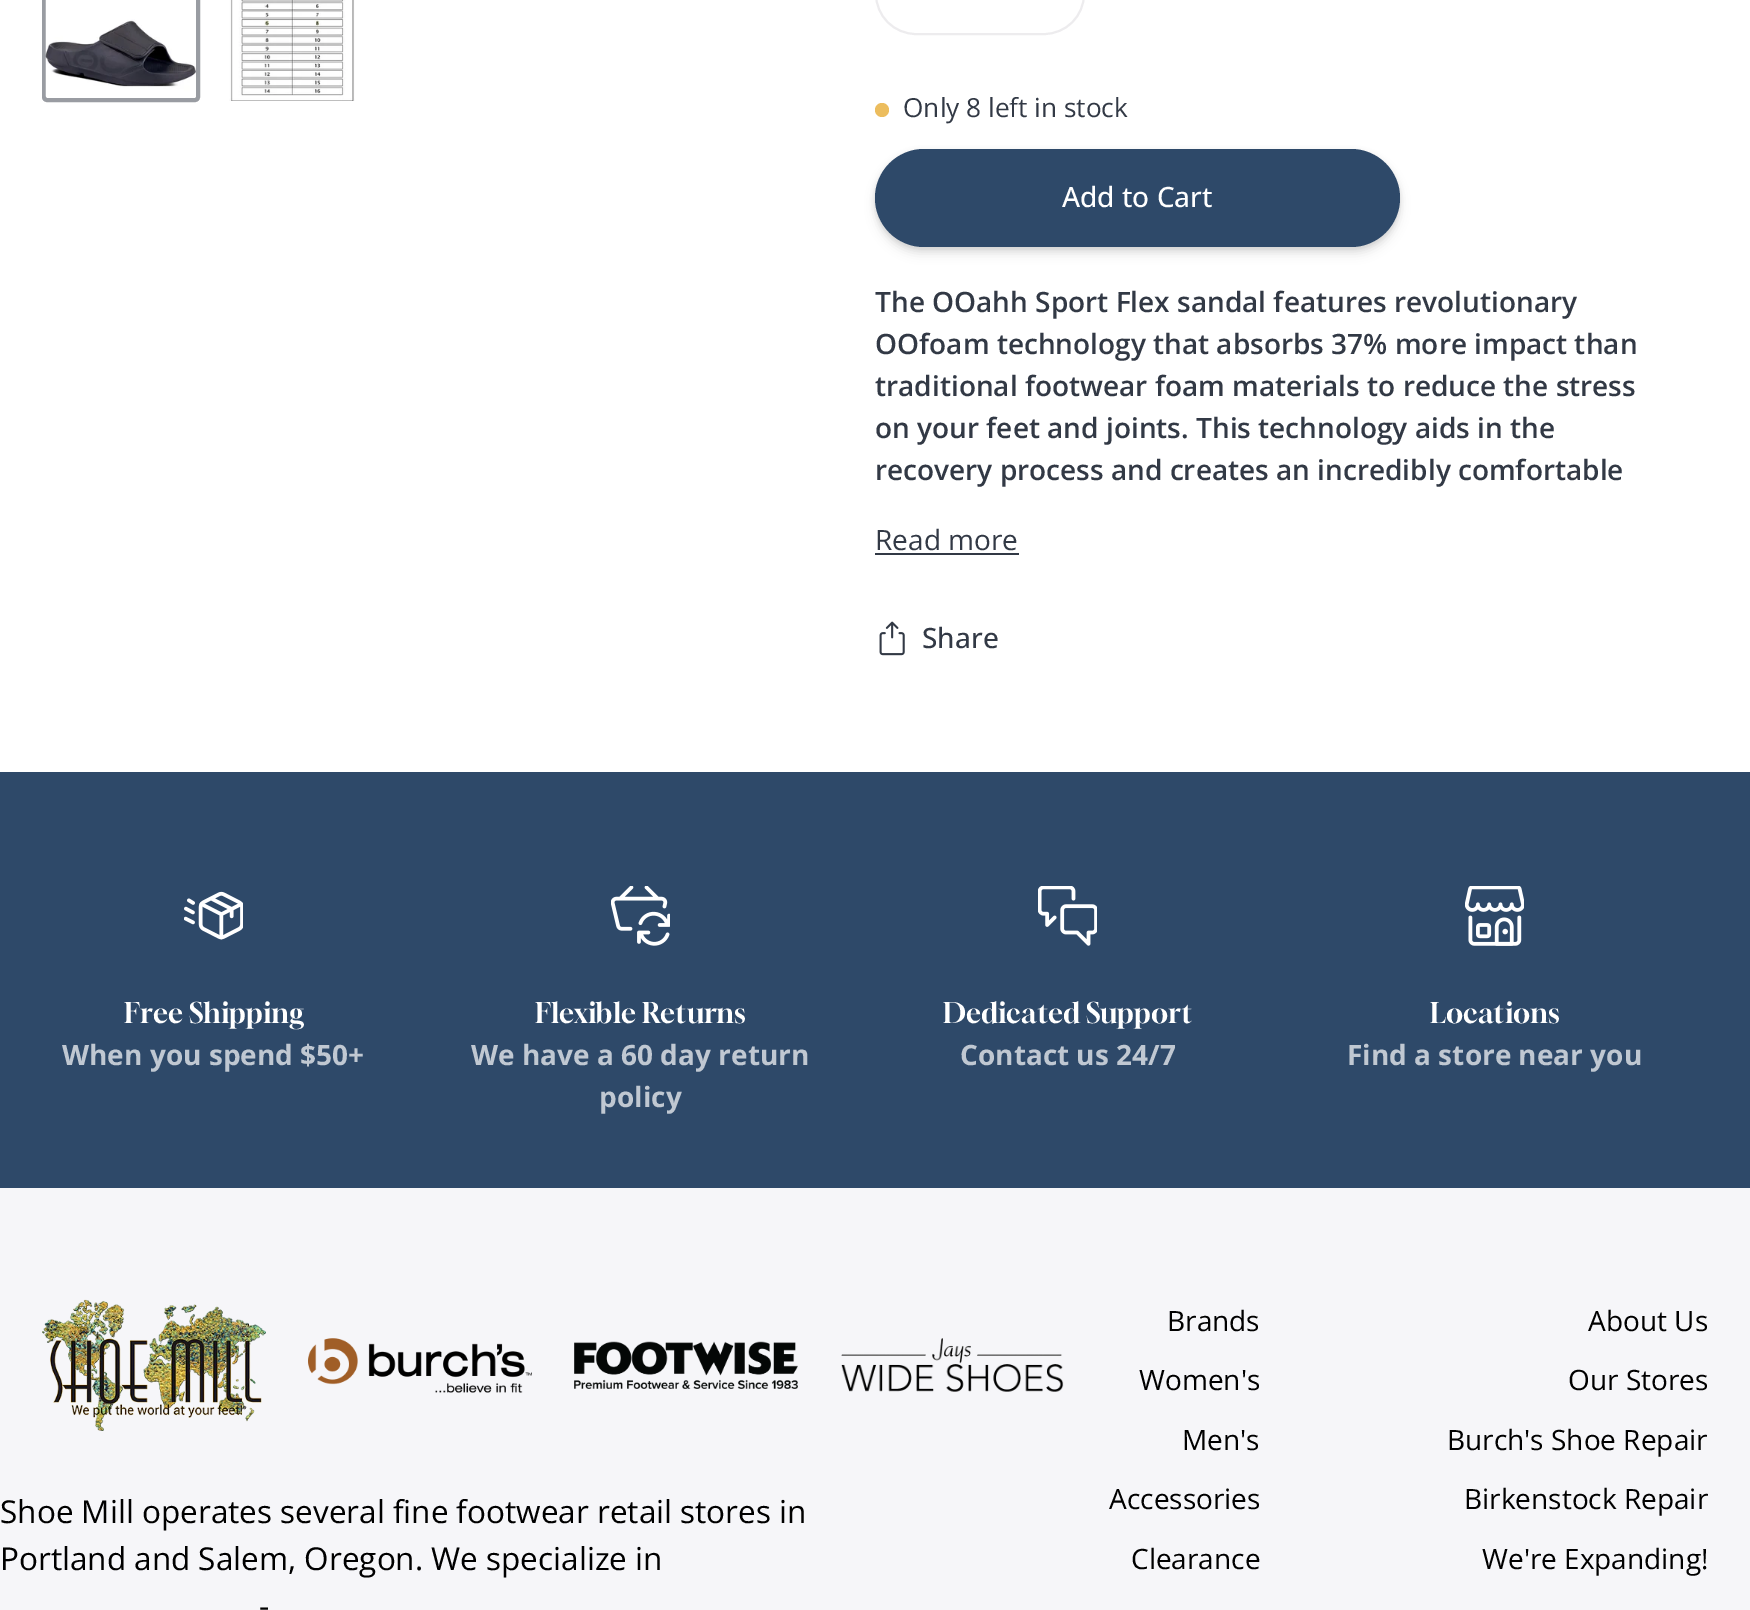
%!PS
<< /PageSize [1750 1610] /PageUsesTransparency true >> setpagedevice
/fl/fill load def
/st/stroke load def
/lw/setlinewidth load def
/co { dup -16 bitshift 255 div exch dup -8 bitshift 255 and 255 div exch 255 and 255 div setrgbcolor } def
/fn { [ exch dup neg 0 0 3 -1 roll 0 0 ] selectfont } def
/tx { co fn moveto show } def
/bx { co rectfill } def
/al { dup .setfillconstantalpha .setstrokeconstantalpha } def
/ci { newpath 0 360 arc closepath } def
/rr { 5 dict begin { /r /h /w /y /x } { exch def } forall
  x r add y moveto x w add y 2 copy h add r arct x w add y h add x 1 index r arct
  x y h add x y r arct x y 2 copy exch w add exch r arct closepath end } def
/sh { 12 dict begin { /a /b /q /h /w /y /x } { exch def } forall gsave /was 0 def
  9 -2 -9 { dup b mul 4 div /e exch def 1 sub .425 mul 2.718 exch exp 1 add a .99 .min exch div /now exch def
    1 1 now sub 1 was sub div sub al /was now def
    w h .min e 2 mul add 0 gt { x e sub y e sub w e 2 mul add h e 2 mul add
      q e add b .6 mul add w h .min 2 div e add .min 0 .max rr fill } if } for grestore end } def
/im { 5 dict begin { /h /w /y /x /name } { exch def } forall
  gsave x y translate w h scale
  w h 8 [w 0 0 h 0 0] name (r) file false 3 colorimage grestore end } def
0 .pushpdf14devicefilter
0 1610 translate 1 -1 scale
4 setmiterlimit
0 0 1750 1610 16#FFFFFF bx
16#999CA2 co
4 lw
44 -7 154 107 3 rr st
(media/1.raw) 45 0 151 97 im
(media/2.raw) 229 0 126 101 im
16#EDECEE co
2 lw
876 -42 208 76 40 rr st
16#ECBD5E co
882 110 7 ci fl
16#000000 co
875 151 525 98 49 2.5 .1 sh
875 156 525 98 49 5 .1 sh
16#2E4969 co
875 149 525 98 49 rr fl
875 553 144 2 16#323945 bx
(media/3.raw) 879 621 26 35 im
0 772 1750 416 16#2E4969 bx
(media/4.raw) 184 891 59 49 im
(media/5.raw) 611 886 59 60 im
(media/6.raw) 1038 886 59 60 im
(media/7.raw) 1465 886 59 60 im
0 1188 1750 422 16#F6F6F9 bx
(media/8.raw) 42 1299 224 132 im
(media/9.raw) 308 1338 224 55 im
(media/10.raw) 574 1341 224 48 im
(media/11.raw) 841 1338 223 54 im
(Only 8 left in stock) 903 117 /OpenSans-Regular 26.25 16#323945 tx
(Add to Cart) 1062 207 /OpenSans-Medium 28 16#FFFFFF tx
(The OOahh Sport Flex sandal features revolutionary) 875 312 /OpenSans-SemiBold 28 16#323945 tx
(OOfoam technology that absorbs 37% more impact than) 875 354 /OpenSans-SemiBold 28 16#323945 tx
(traditional footwear foam materials to reduce the stress) 875 396 /OpenSans-SemiBold 28 16#323945 tx
(on your feet and joints. This technology aids in the) 875 438 /OpenSans-SemiBold 28 16#323945 tx
(recovery process and creates an incredibly comfortable) 875 480 /OpenSans-SemiBold 28 16#323945 tx
(Read more) 875 550 /OpenSans-Regular 28 16#323945 tx
(Share) 922 648 /OpenSans-Medium 28 16#323945 tx
(Free Shipping) 124 1023 /Gloock-Regular 28 16#FFFFFF tx
(When you spend $50+) 62 1065 /OpenSans-Bold 28 16#C0C8D2 tx
(Flexible Returns) 535 1023 /Gloock-Regular 28 16#FFFFFF tx
(We have a 60 day return) 471 1065 /OpenSans-Bold 28 16#C0C8D2 tx
(policy) 599 1107 /OpenSans-Bold 28 16#C0C8D2 tx
(Dedicated Support) 943 1023 /Gloock-Regular 28 16#FFFFFF tx
(Contact us 24/7) 960 1065 /OpenSans-Bold 28 16#C0C8D2 tx
(Locations) 1430 1023 /Gloock-Regular 28 16#FFFFFF tx
(Find a store near you) 1347 1065 /OpenSans-Bold 28 16#C0C8D2 tx
(Shoe Mill operates several fine footwear retail stores in) 0 1523 /OpenSans-Regular 31.5 16#000000 tx
(Portland and Salem, Oregon. We specialize in) 0 1570 /OpenSans-Regular 31.5 16#000000 tx
(-) 259 1617 /OpenSans-Regular 31.5 16#000000 tx
(Brands) 1167 1331 /OpenSans-Regular 28 16#000000 tx
(Women's) 1139 1390 /OpenSans-Regular 28 16#000000 tx
(Men's) 1182 1450 /OpenSans-Regular 28 16#000000 tx
(Accessories) 1109 1509 /OpenSans-Regular 28 16#000000 tx
(Clearance) 1131 1569 /OpenSans-Regular 28 16#000000 tx
(About Us) 1588 1331 /OpenSans-Regular 28 16#000000 tx
(Our Stores) 1568 1390 /OpenSans-Regular 28 16#000000 tx
(Burch's Shoe Repair) 1447 1450 /OpenSans-Regular 28 16#000000 tx
(Birkenstock Repair) 1464 1509 /OpenSans-Regular 28 16#000000 tx
(We're Expanding!) 1482 1569 /OpenSans-Regular 28 16#000000 tx
.poppdf14devicefilter showpage
